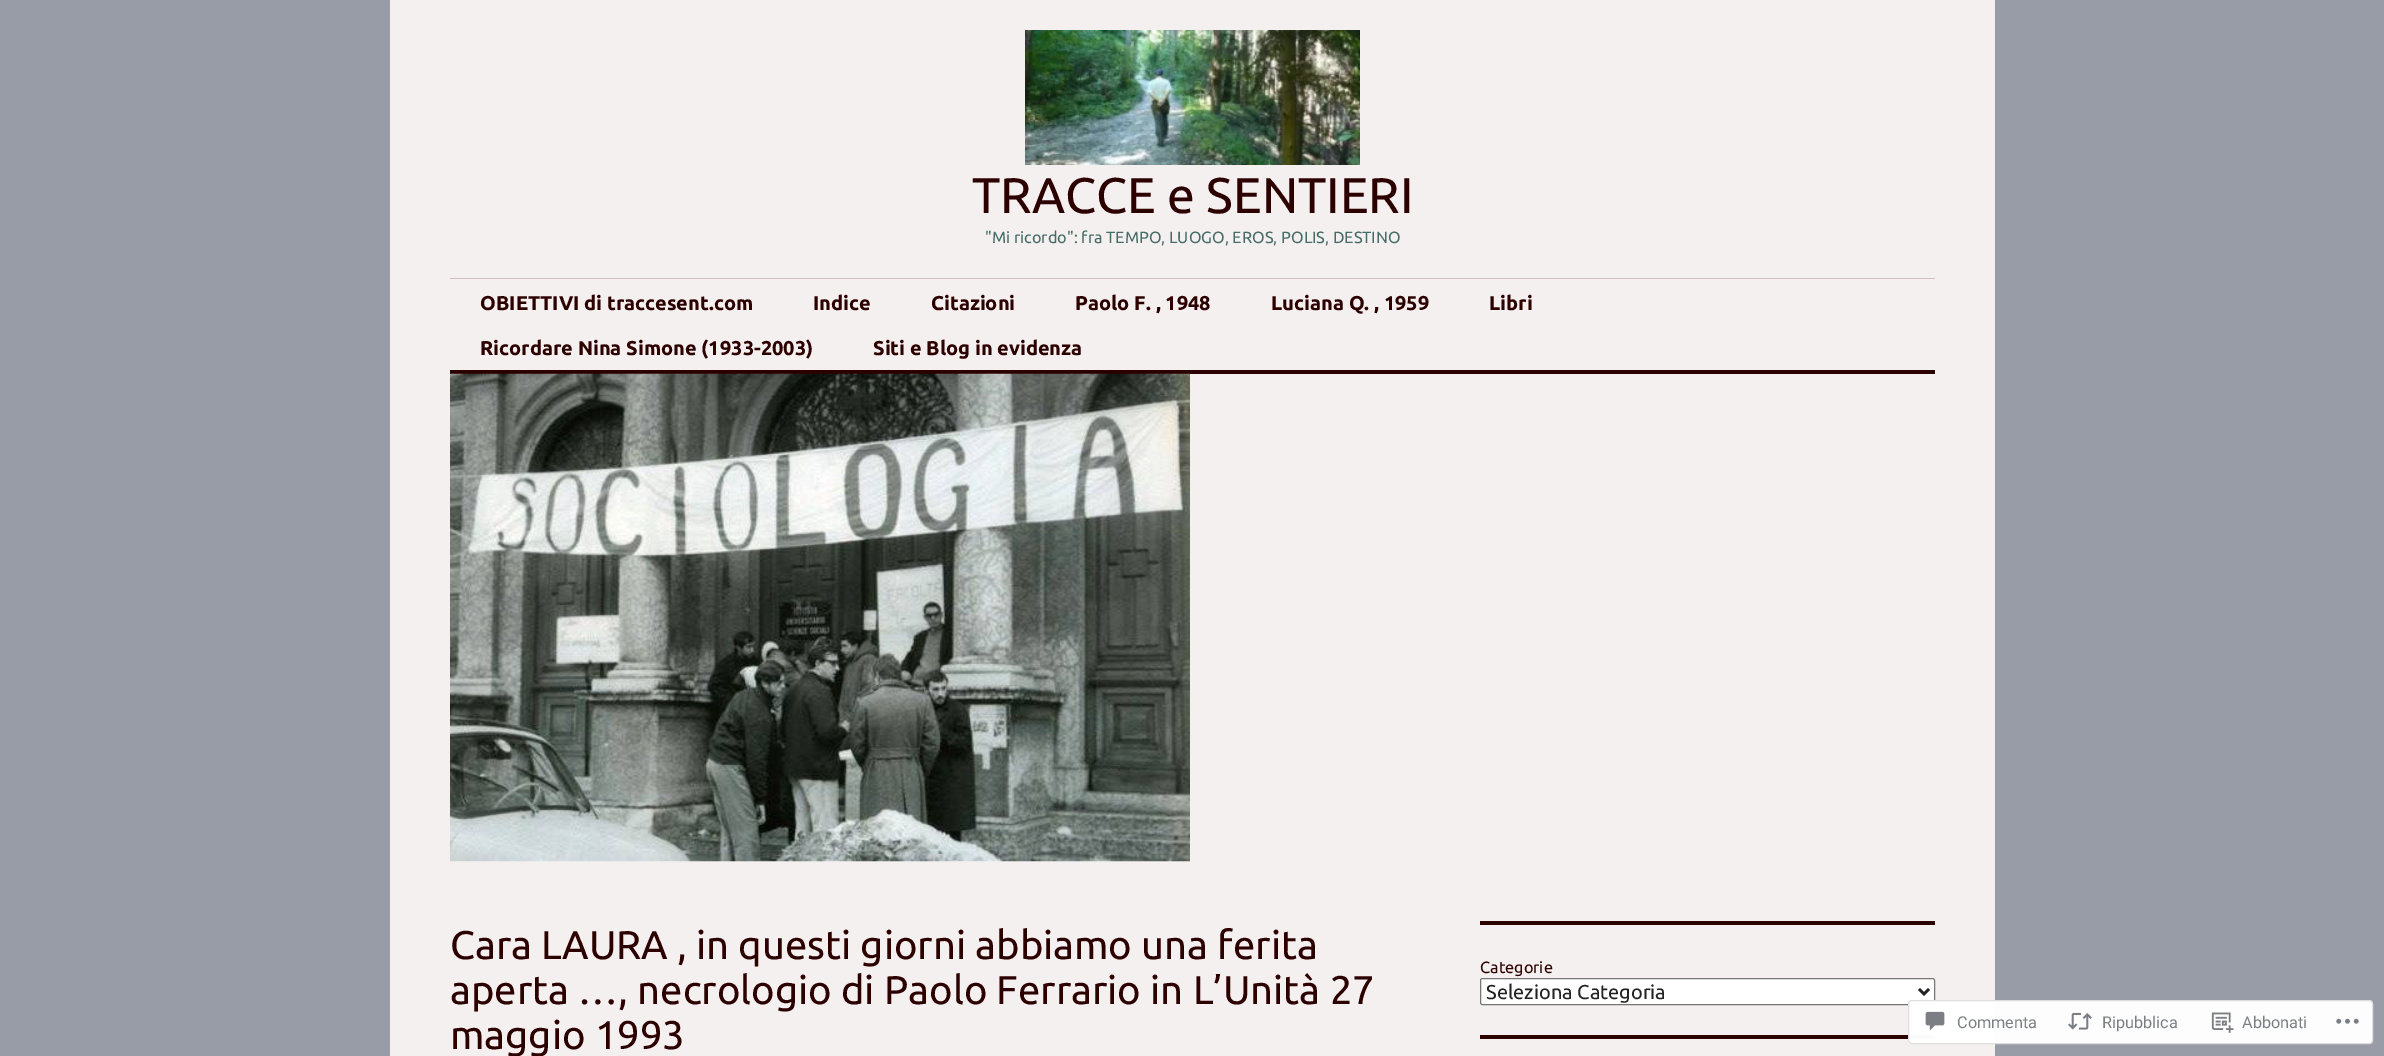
%!PS
<< /PageSize [2384 1056] /PageUsesTransparency true >> setpagedevice
/mt/moveto load def
/li/lineto load def
/fl/fill load def
/st/stroke load def
/gs/gsave load def
/gr/grestore load def
/lw/setlinewidth load def
/co { dup -16 bitshift 255 div exch dup -8 bitshift 255 and 255 div exch 255 and 255 div setrgbcolor } def
/fn { [ exch dup neg 0 0 3 -1 roll 0 0 ] selectfont } def
/tx { co fn moveto show } def
/bx { co rectfill } def
/al { dup .setfillconstantalpha .setstrokeconstantalpha } def
/rr { 5 dict begin { /r /h /w /y /x } { exch def } forall
  x r add y moveto x w add y 2 copy h add r arct x w add y h add x 1 index r arct
  x y h add x y r arct x y 2 copy exch w add exch r arct closepath end } def
/im { 5 dict begin { /h /w /y /x /name } { exch def } forall
  gsave x y translate w h scale
  w h 8 [w 0 0 h 0 0] name (r) file false 3 colorimage grestore end } def
0 .pushpdf14devicefilter
0 1056 translate 1 -1 scale
4 setmiterlimit
0 0 2384 1056 16#989CA6 bx
390 0 1605 1056 16#F5F0F0 bx
(media/1.raw) 1025 30 335 135 im
450 278 1485 1 16#D3BFBF bx
450 370 1485 4 16#2D0000 bx
(media/2.raw) 450 373 740 489 im
1480 921 455 4 16#2D0000 bx
16#FFFFFF co
1480.5 978.5 454 26 2 rr gs fl gr
16#767676 co
st
16#222222 co
2.5 lw
1919 989 mt 1924 994 li 1929 989 li st
1480 1035 455 4 16#2D0000 bx
0.98 al
16#FFFFFF co
1908 1000 465 44 4 rr fl
16#DCDCDE co
1 lw
1908.5 1000.5 464 43 3.5 rr st
1 al
(media/3.raw) 1925 1011 20 20 im
(media/4.raw) 2068 1012 24 18 im
(media/5.raw) 2211 1012 23 21 im
(media/6.raw) 2336 1018 23 6 im
(TRACCE e SENTIERI) 972 213 /Ubuntu-Regular 50 16#2D0000 tx
("Mi ricordo": fra TEMPO, LUOGO, EROS, POLIS, DESTINO) 985 243 /Ubuntu-Regular 16.25 16#456C66 tx
(OBIETTIVI di traccesent.com) 480 310 /Ubuntu-Bold 20 16#2D0000 tx
(Indice) 813 310 /Ubuntu-Bold 20 16#2D0000 tx
(Citazioni) 931 310 /Ubuntu-Bold 20 16#2D0000 tx
(Paolo F. , 1948) 1075 310 /Ubuntu-Bold 20 16#2D0000 tx
(Luciana Q. , 1959) 1271 310 /Ubuntu-Bold 20 16#2D0000 tx
(Libri) 1489 310 /Ubuntu-Bold 20 16#2D0000 tx
(Ricordare Nina Simone \(1933-2003\)) 480 355 /Ubuntu-Bold 20 16#2D0000 tx
(Siti e Blog in evidenza) 873 355 /Ubuntu-Bold 20 16#2D0000 tx
(Cara LAURA , in questi giorni abbiamo una ferita) 450 959 /Ubuntu-Regular 40 16#2D0000 tx
(aperta …, necrologio di Paolo Ferrario in L’Unità 27) 450 1004 /Ubuntu-Regular 40 16#2D0000 tx
(maggio 1993) 450 1049 /Ubuntu-Regular 40 16#2D0000 tx
(Categorie) 1480 973 /Ubuntu-Regular 16.25 16#2D0000 tx
(Seleziona Categoria) 1486 999 /Ubuntu-Regular 20 16#222222 tx
(Commenta) 1957 1028 /Roboto-Regular 16.25 16#7B7F84 tx
(Ripubblica) 2102 1028 /Roboto-Regular 16.25 16#7B7F84 tx
(Abbonati) 2242 1028 /Roboto-Regular 16.25 16#7B7F84 tx
.poppdf14devicefilter showpage
